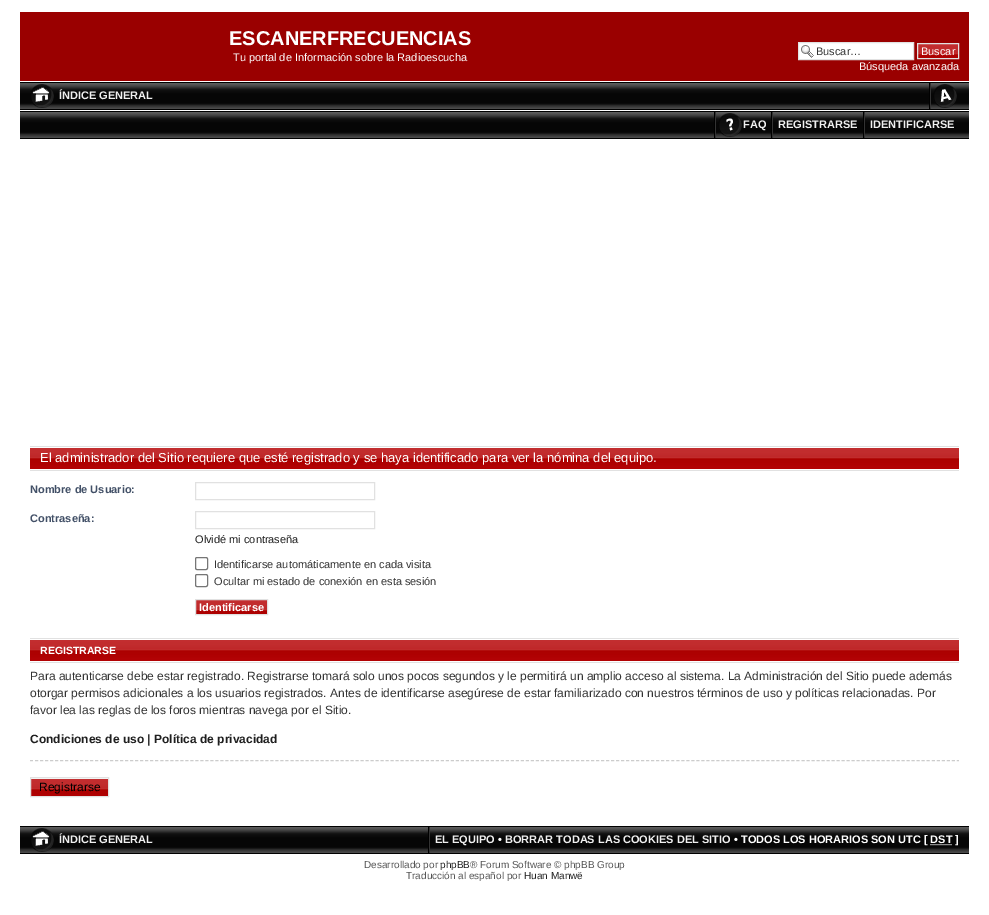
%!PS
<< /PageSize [989 915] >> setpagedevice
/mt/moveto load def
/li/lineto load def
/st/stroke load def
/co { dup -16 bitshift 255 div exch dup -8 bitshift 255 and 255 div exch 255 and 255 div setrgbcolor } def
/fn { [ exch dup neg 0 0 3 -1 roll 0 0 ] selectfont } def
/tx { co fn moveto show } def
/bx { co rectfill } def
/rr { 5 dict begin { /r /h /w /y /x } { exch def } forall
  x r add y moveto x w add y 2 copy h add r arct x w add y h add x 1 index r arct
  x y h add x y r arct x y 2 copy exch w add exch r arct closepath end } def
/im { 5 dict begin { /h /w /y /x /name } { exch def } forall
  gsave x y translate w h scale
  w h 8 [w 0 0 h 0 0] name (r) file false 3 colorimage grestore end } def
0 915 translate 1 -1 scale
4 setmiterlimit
0 0 989 915 16#FFFFFF bx
20 12 949 69 16#9A0000 bx
799 43 114 16 16#FFFFFF bx
(media/1.raw) 801 45 13 13 im
16#E1E1E1 co
798.5 42.5 115 17 rectstroke
(media/2.raw) 918 44 40 14 im
917.5 43.5 41 15 rectstroke
20 138 949 1 16#000000 bx
(media/3.raw) 20 81 949 57 im
(media/4.raw) 31 84 23 24 im
(media/5.raw) 929 83 28 26 im
(media/6.raw) 714 112 28 26 im
(media/7.raw) 771 112 2 26 im
(media/7.raw) 863 112 2 26 im
(media/8.raw) 30 446 929 25 im
16#E1E1E1 co
195.5 482.5 179 17 rectstroke
195.5 511.5 179 17 rectstroke
16#767676 co
195.5 557.5 12 12 1.5 rr st
195.5 574.5 12 12 1.5 rr st
(media/9.raw) 196 600 71 14 im
16#E1E1E1 co
195.5 599.5 72 15 rectstroke
(media/8.raw) 30 638 929 25 im
16#CCCCCC co
[3 2.01] 0 setdash
30 760.5 mt 959 760.5 li st
(media/10.raw) 31 779 77 17 im
31 778 77 1 16#FAFAFA bx
16#E1E1E1 co
[] 0 setdash
30.5 777.5 78 19 rectstroke
20 853 949 1 16#000000 bx
(media/11.raw) 20 825 949 28 im
(media/4.raw) 31 828 23 24 im
(media/7.raw) 428 827 2 26 im
16#FFFFFF co
[1 1] 0 setdash
930.5 844.5 mt 952.5 844.5 li st
(ESCANERFRECUENCIAS) 229 45 /LiberationSans-Bold 20 16#FFFFFF tx
(Tu portal de Información sobre la Radioescucha) 233 61 /LiberationSans-Regular 11 16#FFFFFF tx
(Buscar…) 816 55 /LiberationSans-Regular 11 16#333333 tx
(Buscar) 921 55 /LiberationSans-Regular 11 16#FFFFFF tx
(Búsqueda avanzada) 859 70 /LiberationSans-Regular 11 16#FFFFFF tx
(ÍNDICE GENERAL) 59 99 /LiberationSans-Bold 11 16#F0F0F0 tx
(FAQ) 743 128 /LiberationSans-Bold 11 16#F0F0F0 tx
(REGISTRARSE) 778 128 /LiberationSans-Bold 11 16#F0F0F0 tx
(IDENTIFICARSE) 870 128 /LiberationSans-Bold 11 16#F0F0F0 tx
(El administrador del Sitio requiere que esté registrado y se haya identificado para ver la nómina del equipo.) 40 462 /LiberationSans-Regular 13 16#FFFFFF tx
(Nombre de Usuario:) 30 493 /LiberationSans-Bold 11 16#425067 tx
(Contraseña:) 30 522 /LiberationSans-Bold 11 16#425067 tx
(Olvidé mi contraseña) 195 543 /LiberationSans-Regular 11 16#1F1F1F tx
(Identificarse automáticamente en cada visita) 214 568 /LiberationSans-Regular 11 16#333333 tx
(Ocultar mi estado de conexión en esta sesión) 214 585 /LiberationSans-Regular 11 16#333333 tx
(Identificarse) 199 611 /LiberationSans-Bold 11 16#FFFFFF tx
(REGISTRARSE) 40 654 /LiberationSans-Bold 10.5 16#FFFFFF tx
(Para autenticarse debe estar registrado. Registrarse tomará solo unos pocos segundos y le permitirá un amplio acceso al sistema. La Administración del Sitio puede además) 30 680 /LiberationSans-Regular 12 16#333333 tx
(otorgar permisos adicionales a los usuarios registrados. Antes de identificarse asegúrese de estar familiarizado con nuestros términos de uso y políticas relacionadas. Por) 30 697 /LiberationSans-Regular 12 16#333333 tx
(favor lea las reglas de los foros mientras navega por el Sitio.) 30 714 /LiberationSans-Regular 12 16#333333 tx
(Condiciones de uso) 30 743 /LiberationSans-Bold 12 16#1F1F1F tx
(|) 147 743 /LiberationSans-Bold 12 16#333333 tx
(Política de privacidad) 154 743 /LiberationSans-Bold 12 16#1F1F1F tx
(Registrarse) 39 791 /LiberationSans-Regular 12 16#000000 tx
(ÍNDICE GENERAL) 59 843 /LiberationSans-Bold 11 16#F0F0F0 tx
(EL EQUIPO) 435 843 /LiberationSans-Bold 11 16#F0F0F0 tx
(•) 498 843 /LiberationSans-Bold 11 16#FFFFFF tx
(BORRAR TODAS LAS COOKIES DEL SITIO) 505 843 /LiberationSans-Bold 11 16#F0F0F0 tx
(• TODOS LOS HORARIOS SON UTC [ DST ]) 734 843 /LiberationSans-Bold 11 16#FFFFFF tx
(Desarrollado por) 364 868 /LiberationSans-Regular 10 16#555555 tx
(phpBB) 440 868 /LiberationSans-Regular 10 16#1F1F1F tx
(® Forum Software © phpBB Group) 470 868 /LiberationSans-Regular 10 16#555555 tx
(Traducción al español por) 406 879 /LiberationSans-Regular 10 16#555555 tx
(Huan Manwë) 524 879 /LiberationSans-Regular 10 16#1F1F1F tx
showpage
